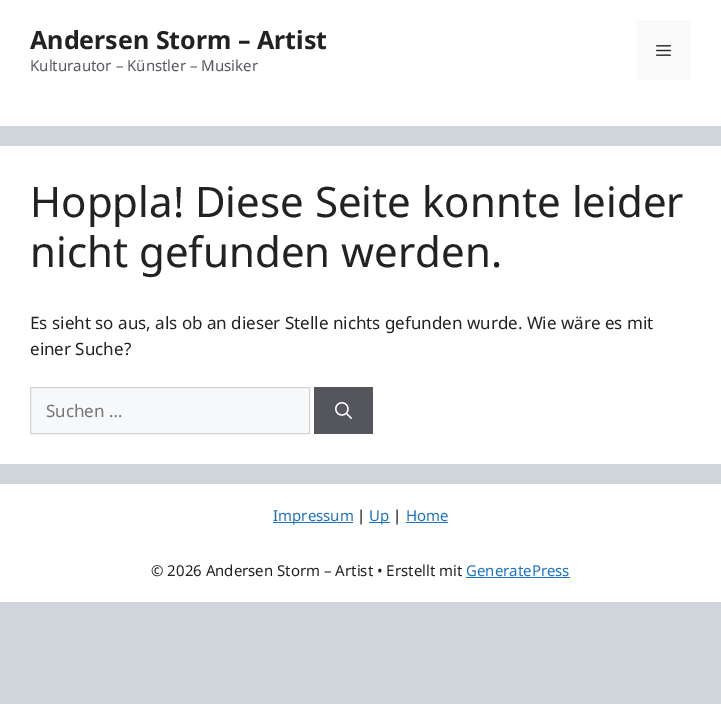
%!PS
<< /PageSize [721 704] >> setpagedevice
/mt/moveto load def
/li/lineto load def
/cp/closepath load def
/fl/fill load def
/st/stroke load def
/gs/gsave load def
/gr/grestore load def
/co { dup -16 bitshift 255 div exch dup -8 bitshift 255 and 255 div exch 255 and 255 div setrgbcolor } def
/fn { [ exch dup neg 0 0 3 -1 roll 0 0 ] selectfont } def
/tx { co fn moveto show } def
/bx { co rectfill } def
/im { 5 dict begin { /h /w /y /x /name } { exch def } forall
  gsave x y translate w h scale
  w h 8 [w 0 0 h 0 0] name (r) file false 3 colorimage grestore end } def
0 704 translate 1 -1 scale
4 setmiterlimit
0 0 721 704 16#D0D5DB bx
0 0 721 126 16#FFFFFF bx
636 20 55 60 16#FAFAFA bx
(media/1.raw) 656 45 15 11 im
0 146 721 318 16#FFFFFF bx
16#F7F8F9 co
30.5 387.5 mt 309.5 387.5 li 309.5 433.5 li 30.5 433.5 li cp gs fl gr
16#D4D4D4 co
st
314 387 59 47 16#55555E bx
(media/2.raw) 335 402 17 17 im
0 484 721 118 16#FFFFFF bx
273 522 80 1 16#1E73BE bx
369 522 21 1 16#1E73BE bx
406 522 42 1 16#1E73BE bx
466 577 104 1 16#1E73BE bx
(Andersen Storm – Artist) 30 49 /NotoSans-Bold 25 16#222222 tx
(Kulturautor – Künstler – Musiker) 30 71 /NotoSans-Regular 15 16#575760 tx
(Hoppla! Diese Seite konnte leider) 30 217 /NotoSans-Regular 42 16#222222 tx
(nicht gefunden werden.) 30 267 /NotoSans-Regular 42 16#222222 tx
(Es sieht so aus, als ob an dieser Stelle nichts gefunden wurde. Wie wäre es mit) 30 329 /NotoSans-Regular 17 16#222222 tx
(einer Suche?) 30 355 /NotoSans-Regular 17 16#222222 tx
(Suchen …) 46 417 /NotoSans-Regular 17 16#757575 tx
(Impressum) 273 521 /NotoSans-Regular 15 16#1E73BE tx
(|) 357 521 /NotoSans-Regular 15 16#222222 tx
(Up) 369 521 /NotoSans-Regular 15 16#1E73BE tx
(|) 393 521 /NotoSans-Regular 15 16#222222 tx
(Home) 406 521 /NotoSans-Regular 15 16#1E73BE tx
(© 2026 Andersen Storm – Artist • Erstellt mit) 151 576 /NotoSans-Regular 15 16#222222 tx
(GeneratePress) 466 576 /NotoSans-Regular 15 16#1E73BE tx
showpage
